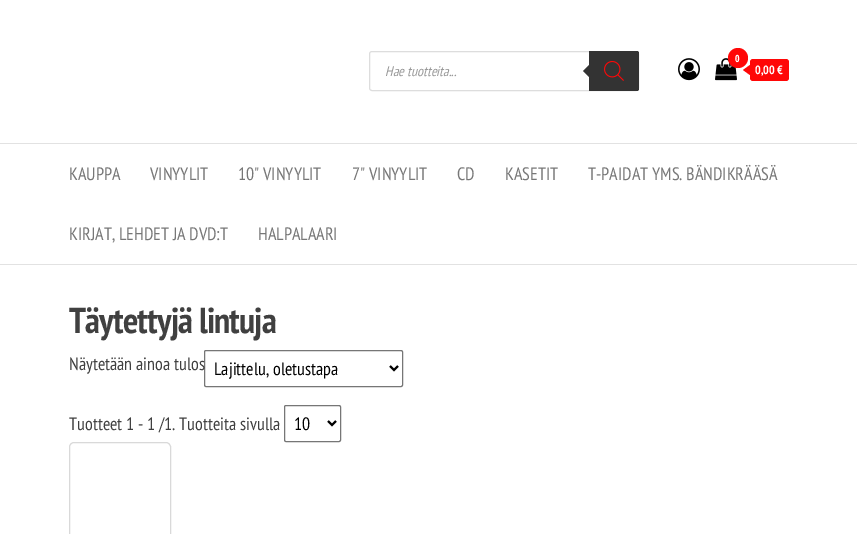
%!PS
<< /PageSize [857 534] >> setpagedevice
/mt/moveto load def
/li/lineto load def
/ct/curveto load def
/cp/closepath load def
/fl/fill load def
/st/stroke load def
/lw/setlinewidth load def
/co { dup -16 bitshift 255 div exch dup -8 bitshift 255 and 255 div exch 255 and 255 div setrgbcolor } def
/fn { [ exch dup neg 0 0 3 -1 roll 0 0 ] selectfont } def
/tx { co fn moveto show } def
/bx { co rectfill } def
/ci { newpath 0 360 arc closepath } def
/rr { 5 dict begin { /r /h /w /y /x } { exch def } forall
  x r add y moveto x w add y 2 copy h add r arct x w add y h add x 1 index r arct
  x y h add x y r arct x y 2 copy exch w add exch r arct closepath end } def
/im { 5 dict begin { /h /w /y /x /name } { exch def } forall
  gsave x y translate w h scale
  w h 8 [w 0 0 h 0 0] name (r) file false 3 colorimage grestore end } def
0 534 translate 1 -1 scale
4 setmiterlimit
0 0 857 534 16#FFFFFF bx
16#DDDDDD co
369.5 51.5 269 39 2.5 rr st
16#333333 co
589 51 mt 637 51 li 638 51 639 52 639 53 ct 639 89 li 639 90 638 91 637 91 ct 589 91 li cp fl
591 63 mt 591 79 li 583 71 li cp fl
(media/1.raw) 604 61 20 20 im
(media/2.raw) 678 58 22 23 im
(media/3.raw) 715 58 22 23 im
16#FF0707 co
738 58 10 ci fl
750 59 39 22 3 rr fl
750 65 mt 750 75 li 743 70 li cp fl
0 143 857 1 16#E2E2E2 bx
0 264 857 1 16#E2E2E2 bx
16#767676 co
204.5 350.5 198 36 1.5 rr st
16#000000 co
2 lw
390 366 mt 394 370 li 398 366 li st
16#767676 co
1 lw
284.5 405.5 56 36 1.5 rr st
16#000000 co
2 lw
328 421 mt 332 425 li 336 421 li st
16#D9D9D9 co
1 lw
69.5 442.5 101 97 4.5 rr st
(Hae tuotteita...) 385 76 /PTSansNarrow-Italic 14 16#999999 tx
(0) 735 62 /OpenSansCondensed-Bold 10 16#FFFFFF tx
(0,00 €) 755 74 /PTSansNarrow-Bold 12 16#FFFFFF tx
(KAUPPA) 69 180 /PTSansNarrow-Regular 18 16#777777 tx
(VINYYLIT) 150 180 /PTSansNarrow-Regular 18 16#777777 tx
(10" VINYYLIT) 238 180 /PTSansNarrow-Regular 18 16#777777 tx
(7" VINYYLIT) 352 180 /PTSansNarrow-Regular 18 16#777777 tx
(CD) 457 180 /PTSansNarrow-Regular 18 16#777777 tx
(KASETIT) 505 180 /PTSansNarrow-Regular 18 16#777777 tx
(T-PAIDAT YMS. BÄNDIKRÄÄSÄ) 588 180 /PTSansNarrow-Regular 18 16#777777 tx
(KIRJAT, LEHDET JA DVD:T) 69 240 /PTSansNarrow-Regular 18 16#777777 tx
(HALPALAARI) 258 240 /PTSansNarrow-Regular 18 16#777777 tx
/PTSansNarrow-Bold 36 fn
16#404040 co
69 333 mt -.75 0 (Täytettyjä lintuja) ashow
(Näytetään ainoa tulos) 69 370 /PTSansNarrow-Regular 18 16#404040 tx
(Lajittelu, oletustapa) 214 375 /PTSansNarrow-Regular 18 16#000000 tx
(Tuotteet 1 - 1 /1. Tuotteita sivulla) 69 430 /PTSansNarrow-Regular 18 16#404040 tx
(10) 294 430 /PTSansNarrow-Regular 18 16#000000 tx
showpage
